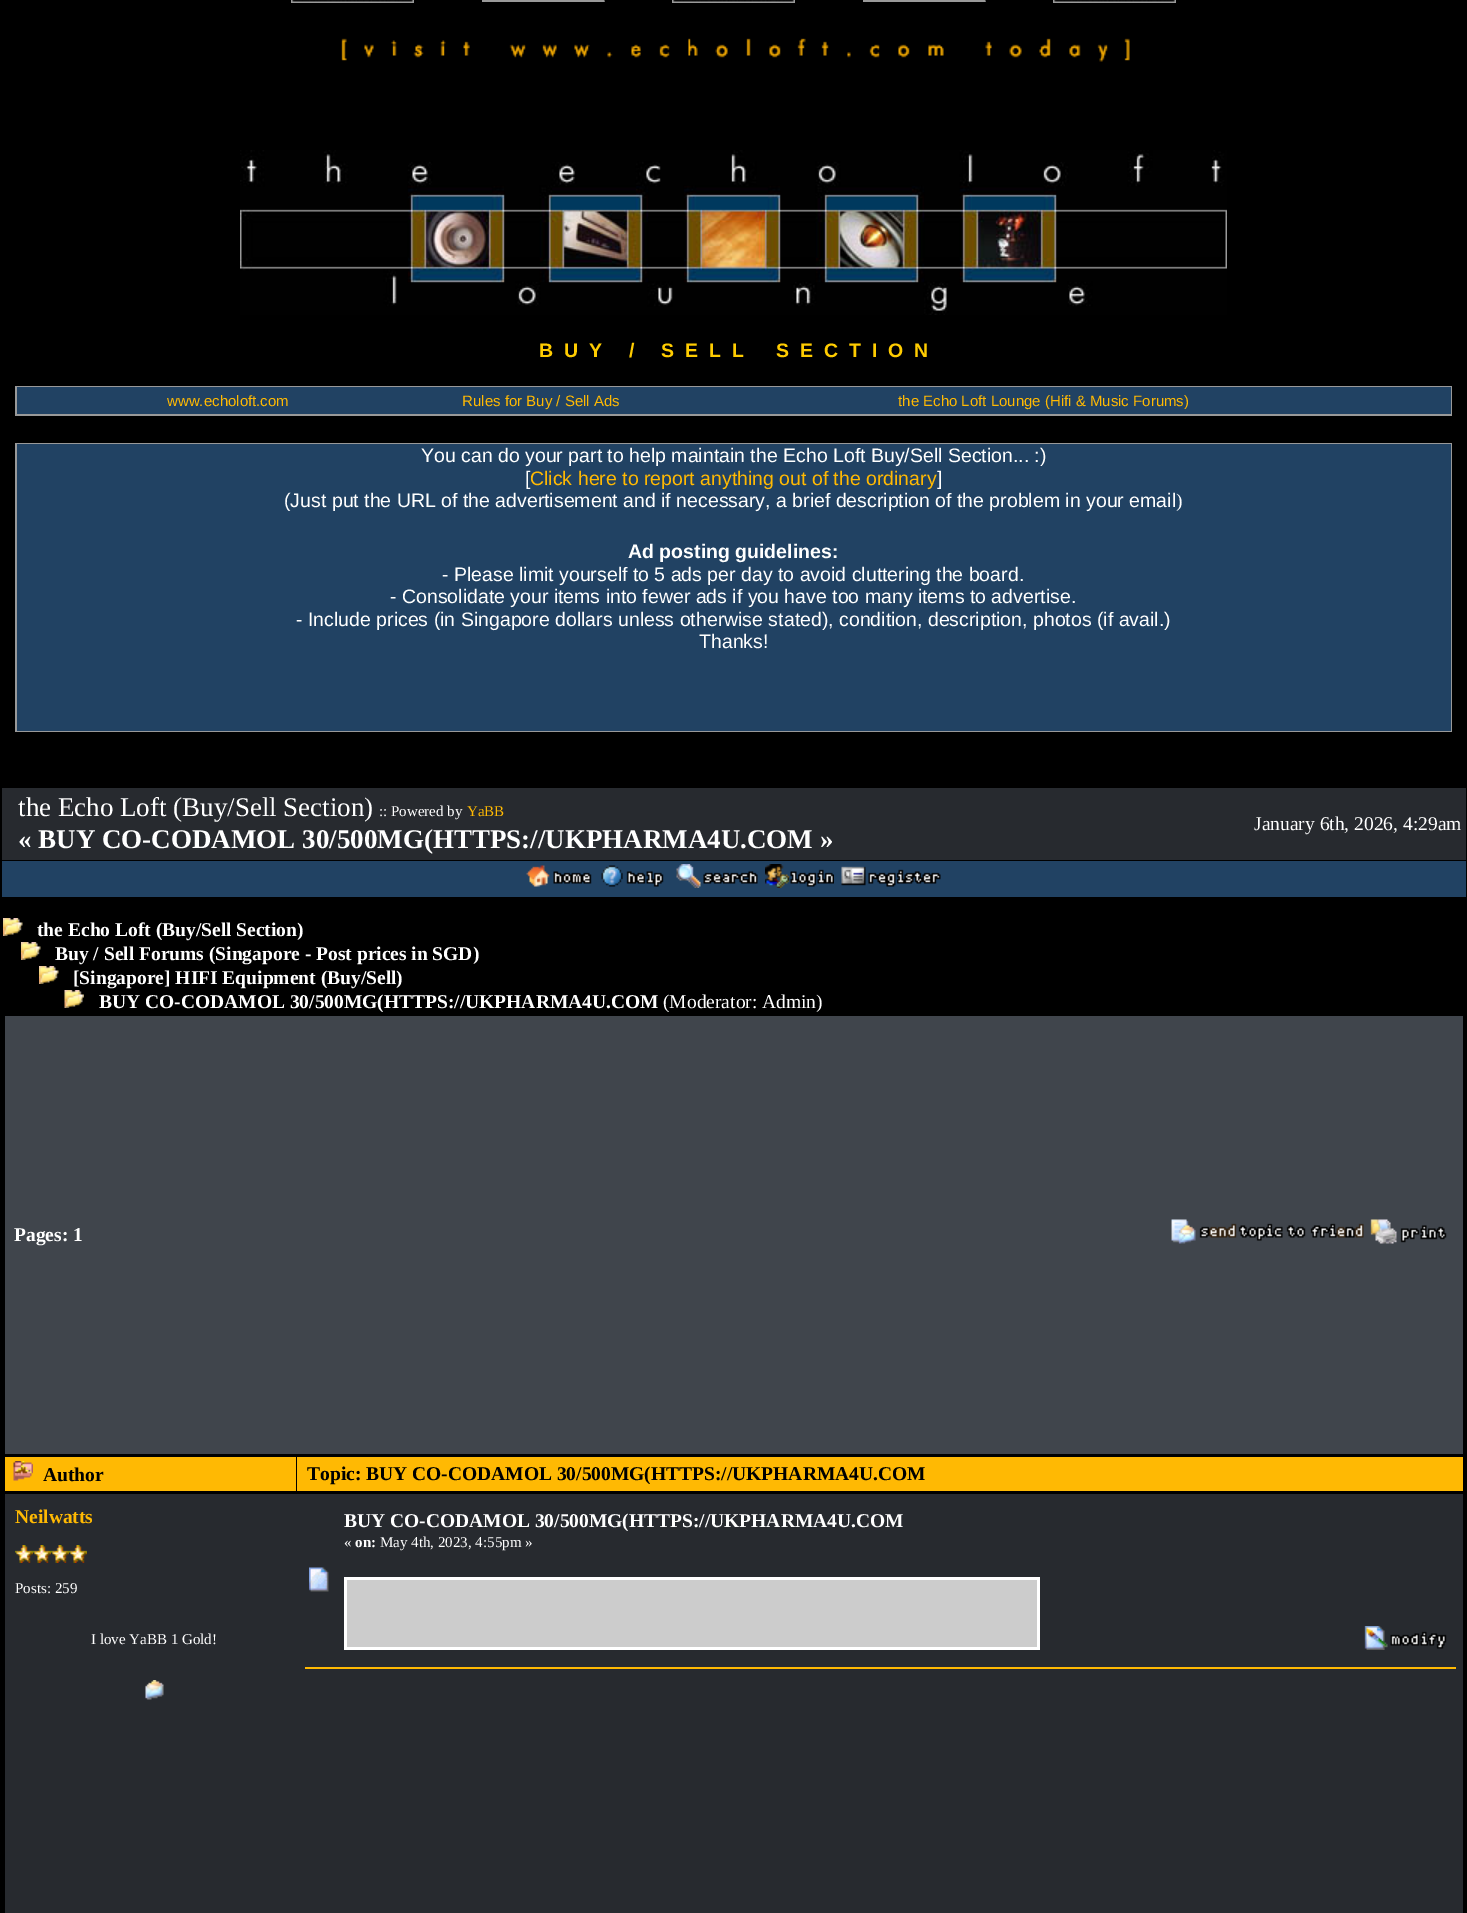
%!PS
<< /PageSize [1467 1913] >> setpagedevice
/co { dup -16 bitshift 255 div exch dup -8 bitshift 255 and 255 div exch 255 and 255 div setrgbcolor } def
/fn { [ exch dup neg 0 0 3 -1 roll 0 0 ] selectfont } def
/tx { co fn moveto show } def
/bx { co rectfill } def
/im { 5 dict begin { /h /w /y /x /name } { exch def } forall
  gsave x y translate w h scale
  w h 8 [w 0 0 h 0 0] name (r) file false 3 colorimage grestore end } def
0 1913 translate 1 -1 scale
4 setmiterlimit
0 0 1467 1913 16#000000 bx
291 0 123 3 16#999999 bx
(media/1.raw) 292 0 121 2 im
482 0 123 2 16#999999 bx
(media/2.raw) 604 0 1 2 im
672 0 123 3 16#999999 bx
(media/3.raw) 673 0 121 2 im
863 0 123 2 16#999999 bx
(media/2.raw) 985 0 1 2 im
1053 0 123 3 16#999999 bx
(media/1.raw) 1054 0 121 2 im
(media/4.raw) 341 38 789 24 im
(media/5.raw) 240 150 987 165 im
15 386 1437 30 16#999999 bx
17 387 1434 27 16#214263 bx
15 443 1437 289 16#999999 bx
17 444 1434 287 16#214263 bx
2 788 1464 72 16#272A2F bx
2 861 1464 36 16#214263 bx
(media/6.raw) 526 865 66 22 im
(media/7.raw) 601 865 63 22 im
(media/8.raw) 676 864 82 24 im
(media/9.raw) 765 864 69 24 im
(media/10.raw) 841 866 100 21 im
(media/11.raw) 3 918 20 18 im
(media/11.raw) 21 942 20 18 im
(media/11.raw) 39 966 20 18 im
(media/12.raw) 64 990 20 18 im
5 1016 1458 438 16#40454C bx
(media/13.raw) 1171 1219 193 25 im
(media/14.raw) 1370 1219 77 25 im
5 1457 291 34 16#FFB903 bx
(media/15.raw) 13 1461 20 20 im
297 1457 1166 34 16#FFB903 bx
5 1494 1458 419 16#272A2F bx
(media/16.raw) 15 1545 18 18 im
(media/16.raw) 33 1545 18 18 im
(media/16.raw) 51 1545 18 18 im
(media/16.raw) 69 1545 18 18 im
(media/17.raw) 145 1680 19 20 im
344 1577 696 73 16#FFFFFF bx
347 1580 690 67 16#CCCCCC bx
(media/18.raw) 309 1567 20 25 im
(media/19.raw) 1364 1626 83 24 im
305 1667 1151 2 16#FFB903 bx
(B) 539 357 /LiberationSans-Bold 19.5 16#FFCC00 tx
(U  Y     /     S) 564 357 /LiberationSans-Bold 19.5 16#FFCC00 tx
(E  L  L      S  E  C  T) 685 357 /LiberationSans-Bold 19.5 16#FFCC00 tx
(I  O  N) 872 357 /LiberationSans-Bold 19.5 16#FFCC00 tx
(www.echoloft.com) 167 406 /LiberationSans-Regular 15 16#FFB903 tx
(Rules for Buy / Sell Ads) 462 406 /LiberationSans-Regular 15 16#FFB903 tx
(the Echo Loft Lounge \(Hifi & Music Forums\)) 898 406 /LiberationSans-Regular 15 16#FFB903 tx
(You can do your part to help maintain the Echo Loft Buy/Sell Section... :\)) 421 462 /LiberationSans-Regular 19.5 16#FFFFFF tx
([) 525 485 /LiberationSans-Regular 19.5 16#FFFFFF tx
(Click here to report anything out of the ordinary) 530 485 /LiberationSans-Regular 19.5 16#FFB903 tx
(]) 937 485 /LiberationSans-Regular 19.5 16#FFFFFF tx
(\(Just put the URL of the advertisement and if necessary, a brief description of the problem in your email) 284 507 /LiberationSans-Regular 19.5 16#FFFFFF tx
(\)) 1176 507 /LiberationSerif-Regular 19.5 16#FFFFFF tx
(Ad posting guidelines:) 628 558 /LiberationSans-Bold 19.5 16#FFFFFF tx
(- Please limit yourself to 5 ads per day to avoid cluttering the board.) 442 581 /LiberationSans-Regular 19.5 16#FFFFFF tx
(- Consolidate your items into fewer ads if you have too many items to advertise.) 390 603 /LiberationSans-Regular 19.5 16#FFFFFF tx
(- Include prices \(in Singapore dollars unless otherwise stated\), condition, description, photos \(if avail.\)) 296 626 /LiberationSans-Regular 19.5 16#FFFFFF tx
(Thanks!) 699 648 /LiberationSans-Regular 19.5 16#FFFFFF tx
(the Echo Loft \(Buy/Sell Section\)) 18 816 /LiberationSerif-Regular 27 16#FFFFFF tx
(:: Powered by) 379 816 /LiberationSerif-Regular 15 16#FFFFFF tx
(YaBB) 467 816 /LiberationSerif-Regular 15 16#FFB903 tx
(« BUY CO-CODAMOL 30/500MG\(HTTPS://UKPHARMA4U.COM ») 18 848 /LiberationSerif-Bold 27 16#FFFFFF tx
(January 6th, 2026, 4:29am) 1254 830 /LiberationSerif-Regular 19.5 16#FFFFFF tx
(the Echo Loft \(Buy/Sell Section\)) 37 936 /LiberationSerif-Bold 19.5 16#FFFFFF tx
(Buy / Sell Forums \(Singapore - Post prices in SGD\)) 55 960 /LiberationSerif-Bold 19.5 16#FFFFFF tx
([Singapore] HIFI Equipment \(Buy/Sell\)) 73 984 /LiberationSerif-Bold 19.5 16#FFFFFF tx
(BUY CO-CODAMOL 30/500MG\(HTTPS://UKPHARMA4U.COM) 99 1008 /LiberationSerif-Bold 19.5 16#FFFFFF tx
(\(Moderator: Admin\)) 663 1008 /LiberationSerif-Regular 19.5 16#FFFFFF tx
(Pages: 1) 14 1241 /LiberationSerif-Bold 19.5 16#FFFFFF tx
(Author) 43 1481 /LiberationSerif-Bold 19.5 16#000000 tx
(Topic: BUY CO-CODAMOL 30/500MG\(HTTPS://UKPHARMA4U.COM) 307 1480 /LiberationSerif-Bold 19.5 16#000000 tx
(Neilwatts) 15 1523 /LiberationSerif-Bold 19.5 16#FFB903 tx
(Posts: 259) 15 1593 /LiberationSerif-Regular 15 16#FFFFFF tx
(I love YaBB 1 Gold!) 91 1644 /LiberationSerif-Regular 15 16#FFFFFF tx
(BUY CO-CODAMOL 30/500MG\(HTTPS://UKPHARMA4U.COM) 344 1527 /LiberationSerif-Bold 19.5 16#FFFFFF tx
(«) 344 1547 /LiberationSerif-Regular 15 16#FFFFFF tx
(on:) 355 1547 /LiberationSerif-Bold 15 16#FFFFFF tx
(May 4th, 2023, 4:55pm ») 380 1547 /LiberationSerif-Regular 15 16#FFFFFF tx
showpage
